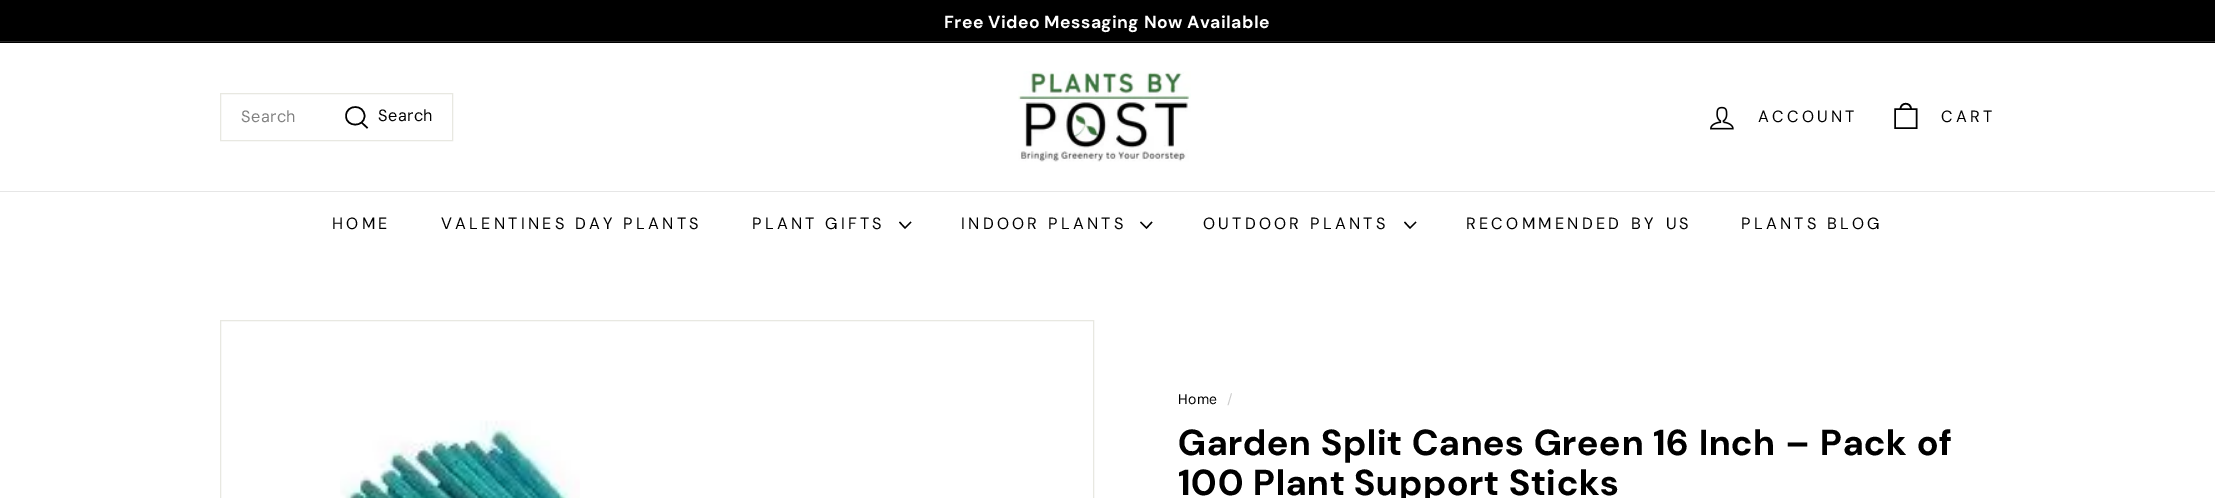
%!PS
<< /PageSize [2215 498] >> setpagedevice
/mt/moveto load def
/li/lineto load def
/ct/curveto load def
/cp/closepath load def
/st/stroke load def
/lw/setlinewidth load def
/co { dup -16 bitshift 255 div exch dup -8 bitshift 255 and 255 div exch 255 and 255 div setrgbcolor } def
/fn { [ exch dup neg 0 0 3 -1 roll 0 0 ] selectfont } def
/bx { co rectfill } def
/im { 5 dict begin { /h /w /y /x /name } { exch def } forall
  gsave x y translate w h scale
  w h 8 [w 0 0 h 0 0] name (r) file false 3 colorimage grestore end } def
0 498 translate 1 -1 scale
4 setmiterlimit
0 0 2215 498 16#FFFFFF bx
0 0 2215 43 16#000000 bx
0 41 2215 1 16#262626 bx
16#E8E8E1 co
220.5 93.5 232 47 rectstroke
16#000000 co
1.5 lw
364.5 116 mt 364.5 127.5 346 127.5 346 116 ct 346 104 364.5 104 364.5 116 ct cp 367.5 128 mt 361.5 122.5 li st
(media/1.raw) 1018 71 173 91 im
(media/2.raw) 1710 106 24 24 im
1.6 lw
1900.5 109 mt 1900.5 102 1911 102 1911 109 ct 1895 109 mt 1916.5 109 li 1916.5 128 li 1895 128 li cp st
0 191 2215 1 16#E6E6E6 bx
16#000000 co
1.3 lw
899.5 222 mt 905 228 li 911 222 li st
1140.5 222 mt 1146.5 228 li 1152 222 li st
1404.5 222 mt 1410 228 li 1416 222 li st
16#E8E8E1 co
1 lw
220.5 320.5 873 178 rectstroke
(media/3.raw) 340 420 240 78 im
/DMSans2-Bold 17.5 fn
16#FFFFFF co
944 28 mt .4 0 (Free Video Messaging Now Available) ashow
/DMSans-Regular 16.25 fn
16#808080 co
241 122 mt .4 0 (Search) ashow
16#000000 co
378 121 mt .4 0 (Search) ashow
1758 122 mt 3.25 0 (ACCOUNT) ashow
1941 122 mt 3.25 0 (CART) ashow
332 229 mt 3.25 0 (HOME) ashow
441 229 mt 3.25 0 (VALENTINES DAY PLANTS) ashow
752 229 mt 3.25 0 (PLANT GIFTS) ashow
961 229 mt 3.25 0 (INDOOR PLANTS) ashow
1203 229 mt 3.25 0 (OUTDOOR PLANTS) ashow
1466 229 mt 1 0 32 3.25 0 (RECOMMENDED BY US) awidthshow
1741 229 mt 3.25 0 (PLANTS BLOG) ashow
/DMSans-Regular 14 fn
1178 404 mt .4 0 (Home) ashow
16#CCCCCC co
1227 404 mt .4 0 (/) ashow
/DMSans-Bold 36.1 fn
16#000000 co
1178 455 mt .9 0 (Garden Split Canes Green 16 Inch – Pack of) ashow
1178 495 mt .9 0 (100 Plant Support Sticks) ashow
showpage
